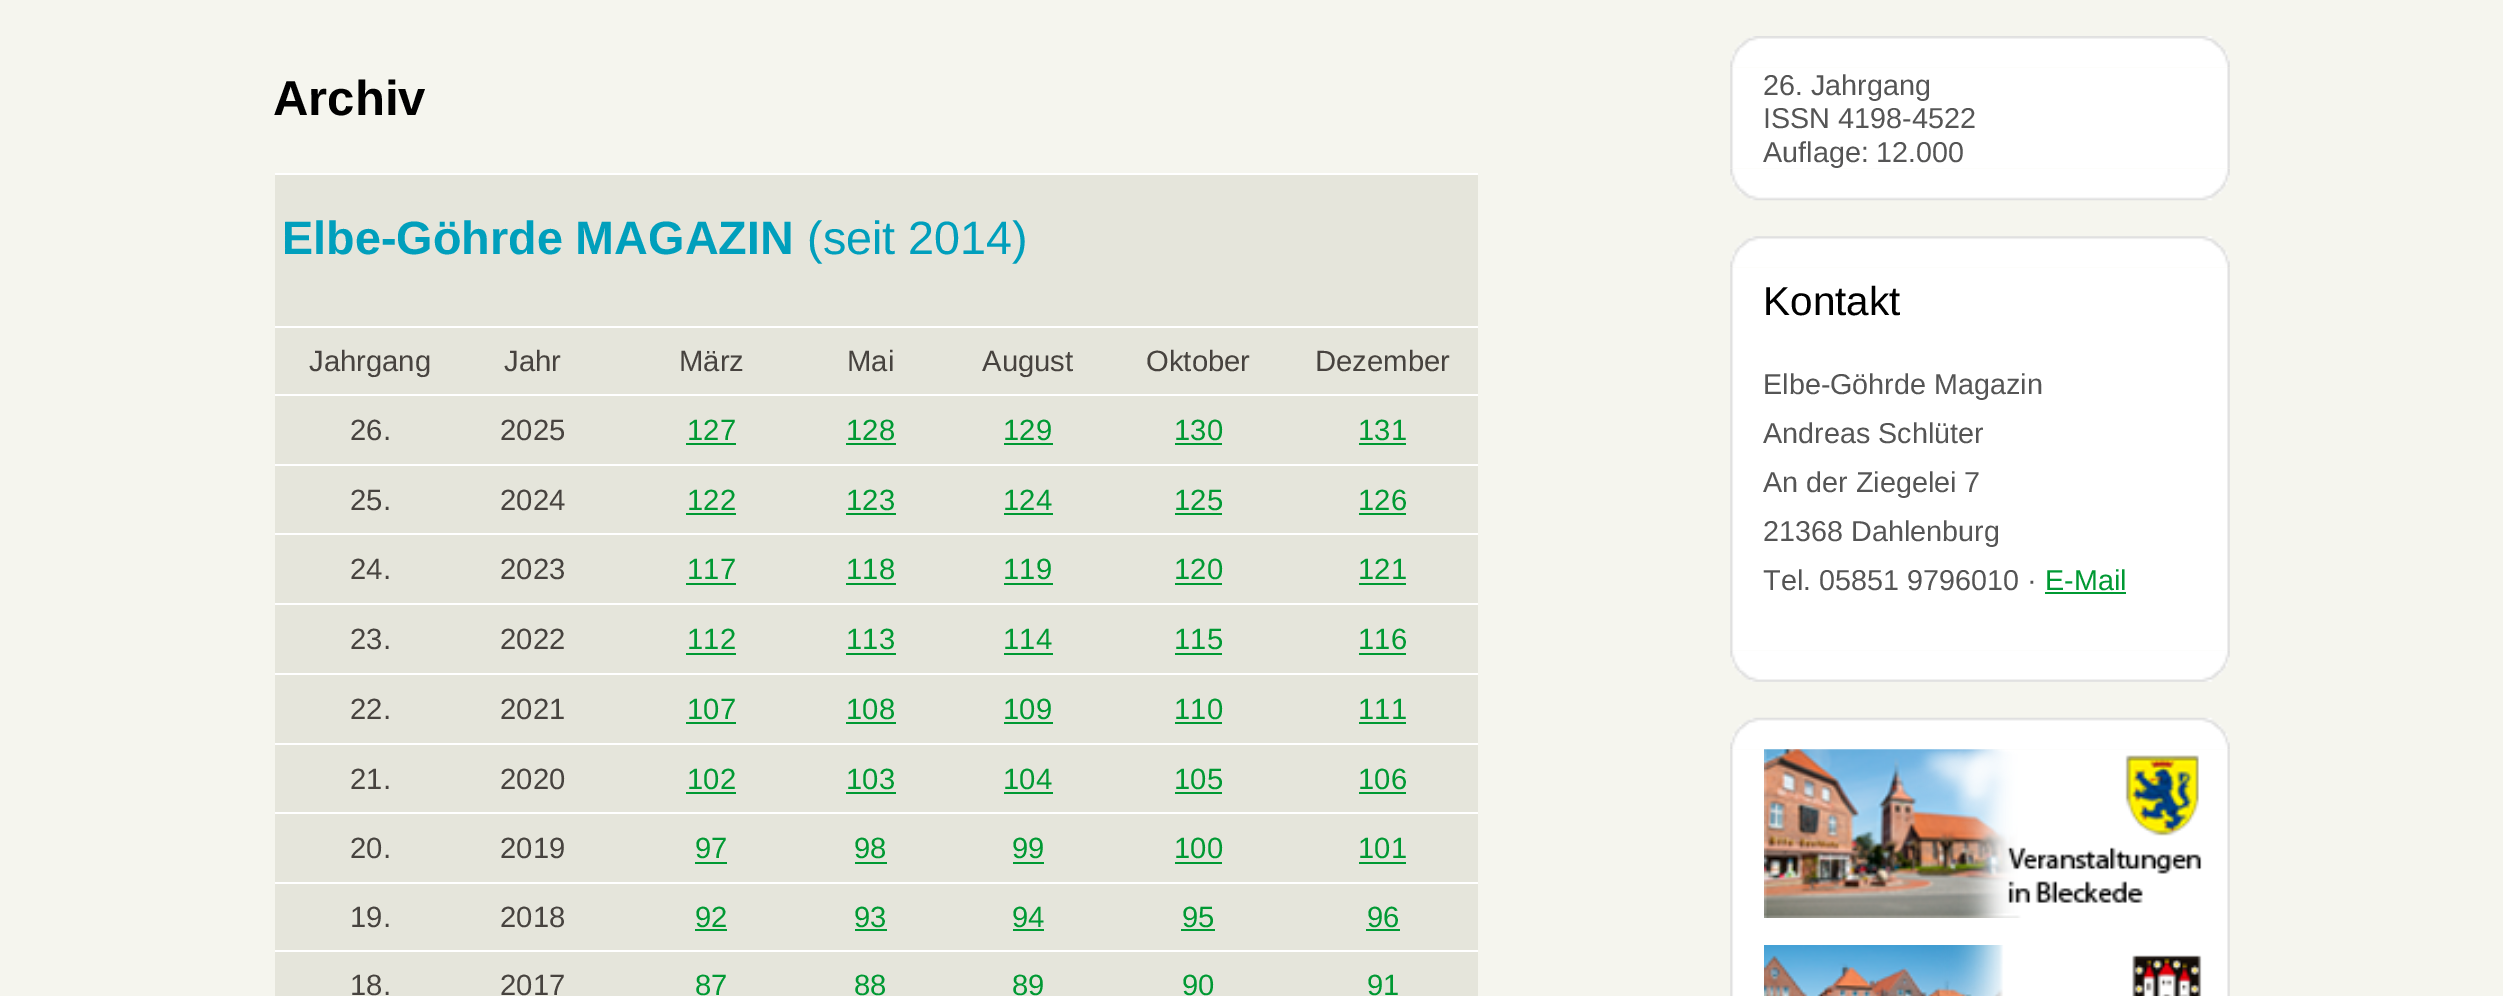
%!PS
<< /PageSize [2503 996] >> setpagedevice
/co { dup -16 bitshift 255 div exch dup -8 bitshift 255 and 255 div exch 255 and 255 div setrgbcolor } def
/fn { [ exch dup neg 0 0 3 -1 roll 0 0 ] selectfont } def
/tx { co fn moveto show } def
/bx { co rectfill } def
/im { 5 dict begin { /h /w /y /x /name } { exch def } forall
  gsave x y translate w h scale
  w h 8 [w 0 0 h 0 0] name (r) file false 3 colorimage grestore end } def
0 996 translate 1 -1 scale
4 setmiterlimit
0 0 2503 996 16#F5F5EE bx
275 175 1203 151 16#E5E5DB bx
275 173 1203 2 16#FFFFFF bx
275 328 1203 66 16#E5E5DB bx
275 326 1203 2 16#FFFFFF bx
275 396 1203 68 16#E5E5DB bx
275 394 1203 2 16#FFFFFF bx
686 443 50 2 16#009933 bx
846 443 50 2 16#009933 bx
1004 443 49 2 16#009933 bx
1175 443 47 2 16#009933 bx
1359 443 47 2 16#009933 bx
275 466 1203 67 16#E5E5DB bx
275 464 1203 2 16#FFFFFF bx
686 513 50 2 16#009933 bx
846 513 50 2 16#009933 bx
1004 513 49 2 16#009933 bx
1175 513 47 2 16#009933 bx
1359 513 47 2 16#009933 bx
275 535 1203 68 16#E5E5DB bx
275 533 1203 2 16#FFFFFF bx
686 583 50 2 16#009933 bx
846 583 50 2 16#009933 bx
1004 583 49 2 16#009933 bx
1175 583 47 2 16#009933 bx
1359 583 47 2 16#009933 bx
275 605 1203 68 16#E5E5DB bx
275 603 1203 2 16#FFFFFF bx
686 653 50 2 16#009933 bx
846 653 50 2 16#009933 bx
1004 653 49 2 16#009933 bx
1175 653 47 2 16#009933 bx
1359 653 47 2 16#009933 bx
275 675 1203 68 16#E5E5DB bx
275 673 1203 2 16#FFFFFF bx
686 722 50 2 16#009933 bx
846 722 50 2 16#009933 bx
1004 722 49 2 16#009933 bx
1175 722 47 2 16#009933 bx
1359 722 47 2 16#009933 bx
275 745 1203 67 16#E5E5DB bx
275 743 1203 2 16#FFFFFF bx
686 792 50 2 16#009933 bx
846 792 50 2 16#009933 bx
1004 792 49 2 16#009933 bx
1175 792 47 2 16#009933 bx
1359 792 47 2 16#009933 bx
275 814 1203 68 16#E5E5DB bx
275 812 1203 2 16#FFFFFF bx
695 862 32 2 16#009933 bx
855 862 32 2 16#009933 bx
1013 862 31 2 16#009933 bx
1175 862 47 2 16#009933 bx
1359 862 47 2 16#009933 bx
275 884 1203 66 16#E5E5DB bx
275 882 1203 2 16#FFFFFF bx
695 929 32 2 16#009933 bx
855 929 32 2 16#009933 bx
1013 929 31 2 16#009933 bx
1181 929 34 2 16#009933 bx
1366 929 34 2 16#009933 bx
275 952 1203 44 16#E5E5DB bx
275 950 1203 2 16#FFFFFF bx
(media/1.raw) 1730 36 500 32 im
(media/2.raw) 1730 67 500 102 im
(media/3.raw) 1730 169 500 32 im
(media/4.raw) 1730 236 500 32 im
(media/5.raw) 1730 268 500 383 im
2045 592 81 2 16#009933 bx
(media/6.raw) 1730 650 500 32 im
(media/7.raw) 1730 717 500 33 im
(media/8.raw) 1730 749 500 247 im
(media/9.raw) 1764 749 438 169 im
(media/10.raw) 1764 945 438 51 im
(Archiv) 273 115 /LiberationSans-Bold 49 16#000000 tx
(Elbe-Göhrde MAGAZIN) 282 254 /LiberationSans-Bold 46.75 16#009FBC tx
(\(seit 2014\)) 807 254 /LiberationSans-Regular 46.75 16#009FBC tx
(Jahrgang) 309 371 /LiberationSans-Regular 29.25 16#47433F tx
(Jahr) 504 371 /LiberationSans-Regular 29.25 16#47433F tx
(März) 679 371 /LiberationSans-Regular 29.25 16#47433F tx
(Mai) 847 371 /LiberationSans-Regular 29.25 16#47433F tx
(August) 982 371 /LiberationSans-Regular 29.25 16#47433F tx
(Oktober) 1146 371 /LiberationSans-Regular 29.25 16#47433F tx
(Dezember) 1315 371 /LiberationSans-Regular 29.25 16#47433F tx
(26.) 350 440 /LiberationSans-Regular 29.25 16#47433F tx
(2025) 500 440 /LiberationSans-Regular 29.25 16#47433F tx
(127) 687 440 /LiberationSans-Regular 29.25 16#009933 tx
(128) 846 440 /LiberationSans-Regular 29.25 16#009933 tx
(129) 1003 440 /LiberationSans-Regular 29.25 16#009933 tx
(130) 1174 440 /LiberationSans-Regular 29.25 16#009933 tx
(131) 1358 440 /LiberationSans-Regular 29.25 16#009933 tx
(25.) 350 510 /LiberationSans-Regular 29.25 16#47433F tx
(2024) 500 510 /LiberationSans-Regular 29.25 16#47433F tx
(122) 687 510 /LiberationSans-Regular 29.25 16#009933 tx
(123) 846 510 /LiberationSans-Regular 29.25 16#009933 tx
(124) 1003 510 /LiberationSans-Regular 29.25 16#009933 tx
(125) 1174 510 /LiberationSans-Regular 29.25 16#009933 tx
(126) 1358 510 /LiberationSans-Regular 29.25 16#009933 tx
(24.) 350 579 /LiberationSans-Regular 29.25 16#47433F tx
(2023) 500 579 /LiberationSans-Regular 29.25 16#47433F tx
(117) 687 579 /LiberationSans-Regular 29.25 16#009933 tx
(118) 846 579 /LiberationSans-Regular 29.25 16#009933 tx
(119) 1003 579 /LiberationSans-Regular 29.25 16#009933 tx
(120) 1174 579 /LiberationSans-Regular 29.25 16#009933 tx
(121) 1358 579 /LiberationSans-Regular 29.25 16#009933 tx
(23.) 350 649 /LiberationSans-Regular 29.25 16#47433F tx
(2022) 500 649 /LiberationSans-Regular 29.25 16#47433F tx
(112) 687 649 /LiberationSans-Regular 29.25 16#009933 tx
(113) 846 649 /LiberationSans-Regular 29.25 16#009933 tx
(114) 1003 649 /LiberationSans-Regular 29.25 16#009933 tx
(115) 1174 649 /LiberationSans-Regular 29.25 16#009933 tx
(116) 1358 649 /LiberationSans-Regular 29.25 16#009933 tx
(22.) 350 719 /LiberationSans-Regular 29.25 16#47433F tx
(2021) 500 719 /LiberationSans-Regular 29.25 16#47433F tx
(107) 687 719 /LiberationSans-Regular 29.25 16#009933 tx
(108) 846 719 /LiberationSans-Regular 29.25 16#009933 tx
(109) 1003 719 /LiberationSans-Regular 29.25 16#009933 tx
(110) 1174 719 /LiberationSans-Regular 29.25 16#009933 tx
(111) 1358 719 /LiberationSans-Regular 29.25 16#009933 tx
(21.) 350 789 /LiberationSans-Regular 29.25 16#47433F tx
(2020) 500 789 /LiberationSans-Regular 29.25 16#47433F tx
(102) 687 789 /LiberationSans-Regular 29.25 16#009933 tx
(103) 846 789 /LiberationSans-Regular 29.25 16#009933 tx
(104) 1003 789 /LiberationSans-Regular 29.25 16#009933 tx
(105) 1174 789 /LiberationSans-Regular 29.25 16#009933 tx
(106) 1358 789 /LiberationSans-Regular 29.25 16#009933 tx
(20.) 350 858 /LiberationSans-Regular 29.25 16#47433F tx
(2019) 500 858 /LiberationSans-Regular 29.25 16#47433F tx
(97) 695 858 /LiberationSans-Regular 29.25 16#009933 tx
(98) 854 858 /LiberationSans-Regular 29.25 16#009933 tx
(99) 1012 858 /LiberationSans-Regular 29.25 16#009933 tx
(100) 1174 858 /LiberationSans-Regular 29.25 16#009933 tx
(101) 1358 858 /LiberationSans-Regular 29.25 16#009933 tx
(19.) 350 927 /LiberationSans-Regular 29.25 16#47433F tx
(2018) 500 927 /LiberationSans-Regular 29.25 16#47433F tx
(92) 695 927 /LiberationSans-Regular 29.25 16#009933 tx
(93) 854 927 /LiberationSans-Regular 29.25 16#009933 tx
(94) 1012 927 /LiberationSans-Regular 29.25 16#009933 tx
(95) 1182 927 /LiberationSans-Regular 29.25 16#009933 tx
(96) 1367 927 /LiberationSans-Regular 29.25 16#009933 tx
(18.) 350 995 /LiberationSans-Regular 29.25 16#47433F tx
(2017) 500 995 /LiberationSans-Regular 29.25 16#47433F tx
(87) 695 995 /LiberationSans-Regular 29.25 16#009933 tx
(88) 854 995 /LiberationSans-Regular 29.25 16#009933 tx
(89) 1012 995 /LiberationSans-Regular 29.25 16#009933 tx
(90) 1182 995 /LiberationSans-Regular 29.25 16#009933 tx
(91) 1367 995 /LiberationSans-Regular 29.25 16#009933 tx
(26. Jahrgang) 1763 95 /LiberationSans-Regular 28.75 16#555555 tx
(ISSN 4198-4522) 1763 128 /LiberationSans-Regular 28.75 16#555555 tx
(Auflage: 12.000) 1763 162 /LiberationSans-Regular 28.75 16#555555 tx
(Kontakt) 1763 315 /LiberationSans-Regular 40.5 16#000000 tx
(Elbe-Göhrde Magazin) 1763 394 /LiberationSans-Regular 28.75 16#555555 tx
(Andreas Schlüter) 1763 443 /LiberationSans-Regular 28.75 16#555555 tx
(An der Ziegelei 7) 1763 492 /LiberationSans-Regular 28.75 16#555555 tx
(21368 Dahlenburg) 1763 541 /LiberationSans-Regular 28.75 16#555555 tx
(Tel. 05851 9796010 ·) 1763 590 /LiberationSans-Regular 28.75 16#555555 tx
(E-Mail) 2045 590 /LiberationSans-Regular 28.75 16#009933 tx
showpage
